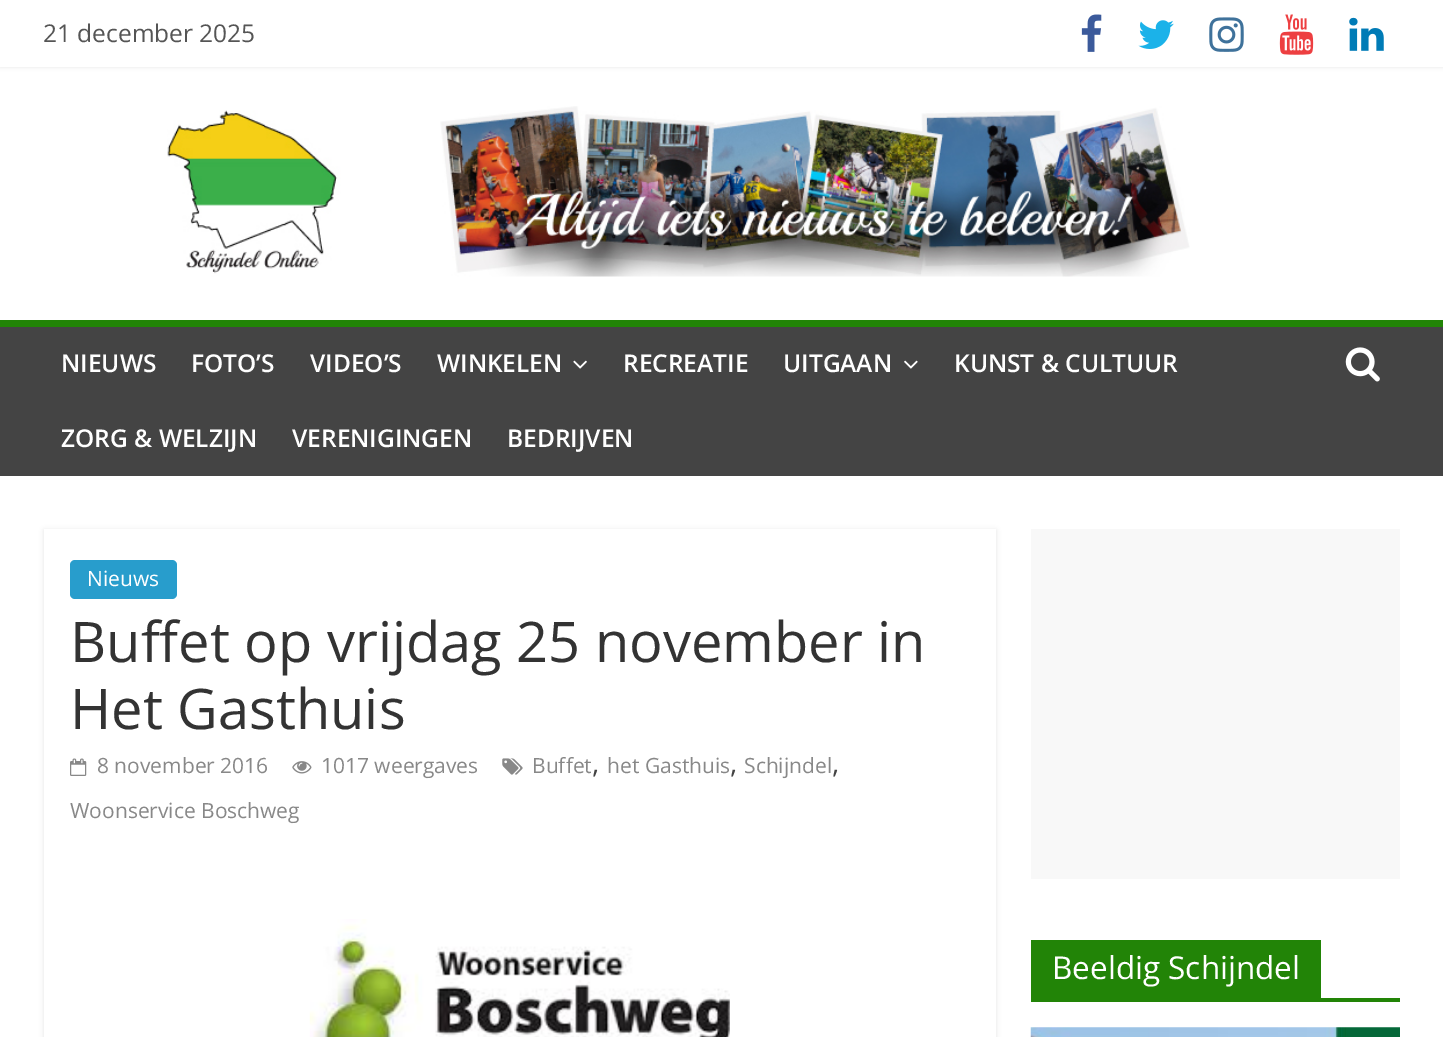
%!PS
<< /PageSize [1443 1037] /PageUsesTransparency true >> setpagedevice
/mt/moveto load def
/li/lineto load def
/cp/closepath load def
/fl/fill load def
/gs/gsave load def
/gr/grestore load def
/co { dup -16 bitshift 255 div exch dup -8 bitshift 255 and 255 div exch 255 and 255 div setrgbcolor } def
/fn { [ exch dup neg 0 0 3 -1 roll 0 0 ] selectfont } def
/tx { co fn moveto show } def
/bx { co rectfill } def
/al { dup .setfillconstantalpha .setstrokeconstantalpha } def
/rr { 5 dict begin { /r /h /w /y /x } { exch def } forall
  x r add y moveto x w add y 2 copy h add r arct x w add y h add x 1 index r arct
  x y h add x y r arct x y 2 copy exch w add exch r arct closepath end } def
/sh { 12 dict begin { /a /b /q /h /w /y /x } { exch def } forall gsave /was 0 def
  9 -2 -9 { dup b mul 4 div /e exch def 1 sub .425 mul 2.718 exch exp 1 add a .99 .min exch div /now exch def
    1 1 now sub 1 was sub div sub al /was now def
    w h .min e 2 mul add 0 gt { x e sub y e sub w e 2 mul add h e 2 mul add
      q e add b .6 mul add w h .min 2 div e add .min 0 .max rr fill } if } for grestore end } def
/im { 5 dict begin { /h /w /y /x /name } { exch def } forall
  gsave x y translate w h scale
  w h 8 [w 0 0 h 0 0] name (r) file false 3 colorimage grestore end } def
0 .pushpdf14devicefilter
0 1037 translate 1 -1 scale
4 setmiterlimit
0 0 1443 1037 16#FFFFFF bx
16#000000 co
0 0 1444 67 0 2 .1 sh
0 0 1443 67 16#FFFFFF bx
(media/1.raw) 1081 14 21 38 im
(media/2.raw) 1138 20 36 29 im
(media/3.raw) 1209 17 35 35 im
(media/4.raw) 1279 14 35 41 im
(media/5.raw) 1349 17 35 34 im
(media/6.raw) 167 106 1023 171 im
0 327 1443 149 16#444444 bx
0 320 1443 7 16#228407 bx
(media/7.raw) 573 360 14 9 im
(media/8.raw) 904 360 14 9 im
(media/9.raw) 1345 347 35 35 im
gs
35 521 mt 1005 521 li 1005 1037 li 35 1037 li cp 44 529 mt 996 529 li 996 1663 li 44 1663 li cp eoclip newpath
16#000000 co
44 530 952 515 0 2.5 .1 sh
gr
16#289DCC co
70 560 107 39 5 rr fl
(media/10.raw) 502 758 21 17 im
(media/11.raw) 70 758 17 18 im
(media/12.raw) 292 761 20 13 im
(media/13.raw) 309 919 421 118 im
1031 529 369 350 16#F8F8F8 bx
1031 998 369 4 16#228407 bx
1031 940 290 58 16#228407 bx
(media/14.raw) 1030 1027 370 10 im
(21 december 2025) 43 42 /OpenSans-Regular 24.5 16#555555 tx
(NIEUWS) 61 372 /OpenSans-SemiBold 24.5 16#FFFFFF tx
(FOTO’S) 191 372 /OpenSans-SemiBold 24.5 16#FFFFFF tx
(VIDEO’S) 310 372 /OpenSans-SemiBold 24.5 16#FFFFFF tx
(WINKELEN) 437 372 /OpenSans-SemiBold 24.5 16#FFFFFF tx
(RECREATIE) 623 372 /OpenSans-SemiBold 24.5 16#FFFFFF tx
(UITGAAN) 783 372 /OpenSans-SemiBold 24.5 16#FFFFFF tx
(KUNST & CULTUUR) 954 372 /OpenSans-SemiBold 24.5 16#FFFFFF tx
(ZORG & WELZIJN) 61 447 /OpenSans-SemiBold 24.5 16#FFFFFF tx
(VERENIGINGEN) 292 447 /OpenSans-SemiBold 24.5 16#FFFFFF tx
(BEDRIJVEN) 507 447 /OpenSans-SemiBold 24.5 16#FFFFFF tx
(Nieuws) 87 586 /OpenSans-Regular 21 16#FFFFFF tx
(Buffet op vrijdag 25 november in) 70 662 /OpenSans-Regular 56 16#333333 tx
(Het Gasthuis) 70 729 /OpenSans-Regular 56 16#333333 tx
(Buffet) 532 773 /OpenSans-Regular 21 16#888888 tx
(,) 592 773 /OpenSans-Regular 28 16#444444 tx
(het Gasthuis) 607 773 /OpenSans-Regular 21 16#888888 tx
(,) 730 773 /OpenSans-Regular 28 16#444444 tx
(Schijndel) 744 773 /OpenSans-Regular 21 16#888888 tx
(,) 832 773 /OpenSans-Regular 28 16#444444 tx
(Woonservice Boschweg) 70 818 /OpenSans-Regular 21 16#888888 tx
(8 november 2016) 97 773 /OpenSans-Regular 21 16#888888 tx
(1017 weergaves) 321 773 /OpenSans-Regular 21 16#888888 tx
(Beeldig Schijndel) 1052 979 /OpenSans-Regular 31.5 16#FFFFFF tx
.poppdf14devicefilter showpage
